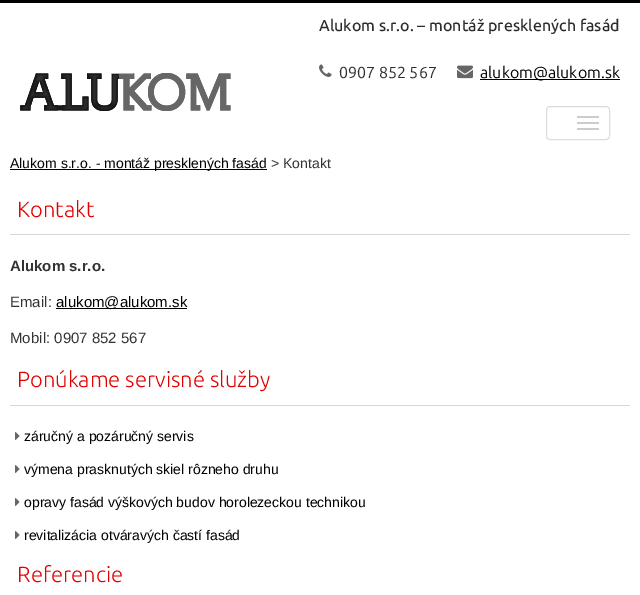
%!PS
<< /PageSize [640 595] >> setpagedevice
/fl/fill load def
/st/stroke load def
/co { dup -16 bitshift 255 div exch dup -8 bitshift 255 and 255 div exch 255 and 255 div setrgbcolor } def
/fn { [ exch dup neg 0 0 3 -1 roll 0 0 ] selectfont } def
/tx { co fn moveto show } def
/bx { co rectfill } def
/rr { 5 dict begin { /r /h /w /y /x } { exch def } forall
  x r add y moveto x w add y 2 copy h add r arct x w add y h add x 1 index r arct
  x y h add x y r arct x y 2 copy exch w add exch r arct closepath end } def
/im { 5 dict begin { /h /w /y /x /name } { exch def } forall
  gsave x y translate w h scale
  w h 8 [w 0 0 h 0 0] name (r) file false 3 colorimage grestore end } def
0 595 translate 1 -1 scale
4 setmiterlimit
0 0 640 595 16#FFFFFF bx
0 0 640 3 16#000000 bx
(media/1.raw) 319 64 13 13 im
(media/2.raw) 457 65 16 14 im
480 79 140 1 16#000000 bx
16#DDDDDD co
546.5 106.5 63 33 3.5 rr st
16#CCCCCC co
577 116 22 2 1 rr fl
577 122 22 2 1 rr fl
577 128 22 2 1 rr fl
(media/3.raw) 20 73 211 38 im
10 169 257 1 16#000000 bx
10 234 620 1 16#D6D6D6 bx
56 308 131 1 16#000000 bx
10 405 620 1 16#D6D6D6 bx
(media/4.raw) 15 432 5 8 im
(media/4.raw) 15 465 5 8 im
(media/4.raw) 15 498 5 8 im
(media/4.raw) 15 531 5 8 im
(Alukom s.r.o. – montáž presklených fasád) 319 31 /Ubuntu-Medium 16 16#2C2C2C tx
(0907 852 567) 339 78 /Ubuntu-Regular 16 16#2C2C2C tx
(alukom@alukom.sk) 480 78 /Ubuntu-Regular 16 16#000000 tx
(Alukom s.r.o. - montáž presklených fasád) 10 168 /LiberationSans-Regular 14 16#000000 tx
(> Kontakt) 271 168 /LiberationSans-Regular 14 16#333333 tx
(Kontakt) 17 217 /Ubuntu-Light 22 16#E20000 tx
(Alukom s.r.o.) 10 271 /LiberationSans-Bold 15 16#333333 tx
(Email:) 10 307 /LiberationSans-Regular 15 16#333333 tx
(alukom@alukom.sk) 56 307 /LiberationSans-Regular 15 16#000000 tx
(Mobil: 0907 852 567) 10 343 /LiberationSans-Regular 15 16#333333 tx
(Ponúkame servisné služby) 17 387 /Ubuntu-Light 22 16#E20000 tx
(záručný a pozáručný servis) 24 441 /LiberationSans-Regular 14 16#000000 tx
(výmena prasknutých skiel rôzneho druhu) 24 474 /LiberationSans-Regular 14 16#000000 tx
(opravy fasád výškových budov horolezeckou technikou) 24 507 /LiberationSans-Regular 14 16#000000 tx
(revitalizácia otváravých častí fasád) 24 540 /LiberationSans-Regular 14 16#000000 tx
(Referencie) 17 582 /Ubuntu-Light 22 16#E20000 tx
showpage
